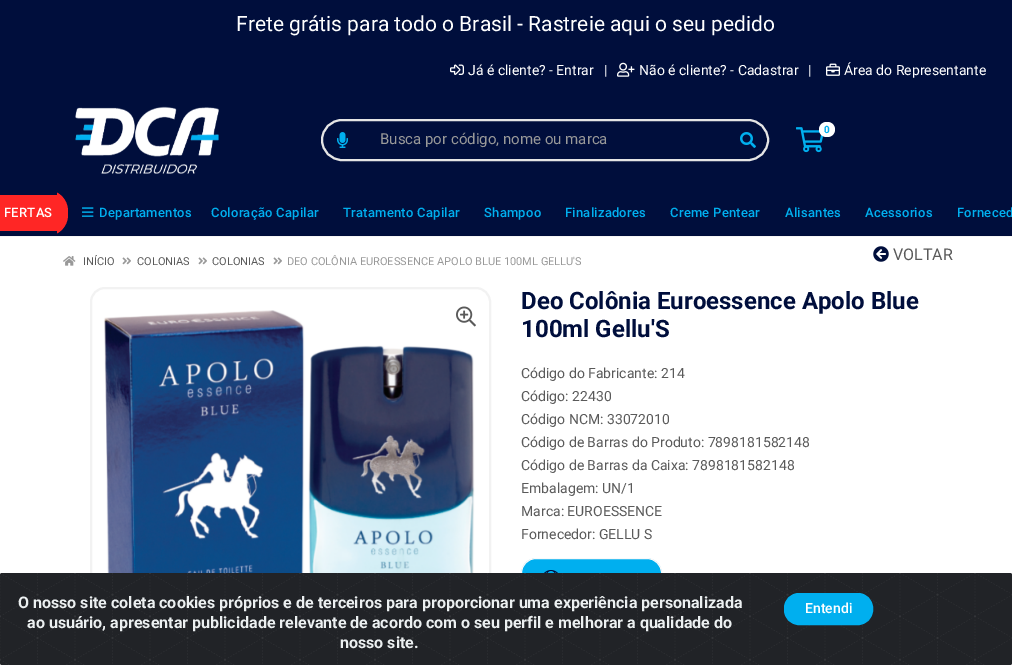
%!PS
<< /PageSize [1012 665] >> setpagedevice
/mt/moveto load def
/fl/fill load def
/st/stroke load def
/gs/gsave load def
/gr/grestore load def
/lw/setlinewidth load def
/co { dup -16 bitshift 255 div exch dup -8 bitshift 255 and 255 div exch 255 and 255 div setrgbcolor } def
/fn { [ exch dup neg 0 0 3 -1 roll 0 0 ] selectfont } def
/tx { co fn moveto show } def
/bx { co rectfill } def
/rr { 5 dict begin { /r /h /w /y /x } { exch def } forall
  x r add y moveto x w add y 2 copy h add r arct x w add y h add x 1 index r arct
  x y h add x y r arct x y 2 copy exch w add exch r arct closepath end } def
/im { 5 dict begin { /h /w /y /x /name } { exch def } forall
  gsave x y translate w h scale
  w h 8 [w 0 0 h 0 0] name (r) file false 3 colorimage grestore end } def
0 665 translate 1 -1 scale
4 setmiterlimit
0 0 1012 665 16#FFFFFF bx
0 0 1012 235 16#000E3C bx
(media/1.raw) 450 64 14 11 im
(media/2.raw) 617 62 18 15 im
(media/3.raw) 826 63 14 13 im
(media/4.raw) 75 106 144 68 im
(media/5.raw) 796 127 28 26 im
16#FFFFFF co
819 122 16 15 7.5 rr fl
16#E5E5E5 co
2 lw
322 120 446 40 20 rr st
(media/6.raw) 337 132 11 16 im
(media/7.raw) 740 132 16 16 im
0 236 1012 1 16#F5F5F5 bx
57 235 955 1 16#000D3A bx
16#FF2625 co
-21 190 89 46 21 rr fl
0 190 57 5 16#000E3C bx
0 231 57 5 16#000E3C bx
(media/8.raw) 82 207 12 10 im
(media/9.raw) 63 256 13 10 im
(media/10.raw) 122 257 9 8 im
(media/10.raw) 198 257 9 8 im
(media/10.raw) 273 257 9 8 im
(media/11.raw) 873 246 16 16 im
16#F2F2F2 co
91 288 399 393 14 rr st
(media/13.raw) 98 310 382 263 im
(media/12.raw) 456 306 20 21 im
16#00AFEF co
521.5 558.5 140 37 14.5 rr gs fl gr
16#F8F9FA co
1 lw
st
(media/14.raw) 544 570 14 3 im
(media/15.raw) 0 573 1012 92 im
16#00AFEF co
784.5 593.5 88 31 14.5 rr gs fl gr
st
(Frete grátis para todo o Brasil - Rastreie aqui o seu pedido) 236 31 /Roboto-Regular 21 16#FFFFFF tx
(Já é cliente? - Entrar) 468 75 /Roboto-Regular 14 16#FFFFFF tx
(|) 604 75 /Roboto-Regular 14 16#FFFFFF tx
(Não é cliente? - Cadastrar) 639 75 /Roboto-Regular 14 16#FFFFFF tx
(|) 808 75 /Roboto-Regular 14 16#FFFFFF tx
(Área do Representante) 844 75 /Roboto-Regular 14 16#FFFFFF tx
(0) 824 133 /Roboto-Bold 10 16#00AFEF tx
(Busca por código, nome ou marca) 380 144 /Roboto-Regular 15 16#999999 tx
/Roboto-Medium 13 fn
16#FFFFFF co
4 217 mt .25 0 (FERTAS) ashow
16#00AFEF co
99 217 mt .25 0 (Departamentos) ashow
211 217 mt .25 0 (Coloração Capilar) ashow
343 217 mt .25 0 (Tratamento Capilar) ashow
484 217 mt .25 0 (Shampoo) ashow
565 217 mt .25 0 (Finalizadores) ashow
670 217 mt .25 0 (Creme Pentear) ashow
785 217 mt .25 0 (Alisantes) ashow
865 217 mt .25 0 (Acessorios) ashow
957 217 mt .25 0 (Forneced) ashow
(INÍCIO) 83 265 /Roboto-Regular 11 16#5A5A5A tx
(COLONIAS) 137 265 /Roboto-Regular 11 16#5A5A5A tx
(COLONIAS) 212 265 /Roboto-Regular 11 16#5A5A5A tx
(DEO COLÔNIA EUROESSENCE APOLO BLUE 100ML GELLU'S) 287 265 /Roboto-Regular 11 16#999999 tx
(VOLTAR) 893 260 /Roboto-Regular 16 16#5A5A5A tx
(Deo Colônia Euroessence Apolo Blue) 521 309 /Roboto-Bold 24 16#000E3C tx
(100ml Gellu'S) 521 337 /Roboto-Bold 24 16#000E3C tx
(Código do Fabricante: 214) 521 378 /Roboto-Regular 14 16#5A5A5A tx
(Código: 22430) 521 401 /Roboto-Regular 14 16#5A5A5A tx
(Código NCM: 33072010) 521 424 /Roboto-Regular 14 16#5A5A5A tx
(Código de Barras do Produto: 7898181582148) 521 447 /Roboto-Regular 14 16#5A5A5A tx
(Código de Barras da Caixa: 7898181582148) 521 470 /Roboto-Regular 14 16#5A5A5A tx
(Embalagem: UN/1) 521 493 /Roboto-Regular 14 16#5A5A5A tx
(Marca: EUROESSENCE) 521 516 /Roboto-Regular 14 16#5A5A5A tx
(Fornecedor: GELLU S) 521 539 /Roboto-Regular 14 16#5A5A5A tx
(O nosso site coleta cookies próprios e de terceiros para proporcionar uma experiência personalizada) 18 608 /Roboto-Bold 16 16#ECF0F1 tx
(ao usuário, apresentar publicidade relevante de acordo com o seu perfil e melhorar a qualidade do) 27 628 /Roboto-Bold 16 16#ECF0F1 tx
(nosso site.) 340 648 /Roboto-Bold 16 16#ECF0F1 tx
(Entendi) 805 613 /Roboto-Medium 14 16#FFFFFF tx
showpage
